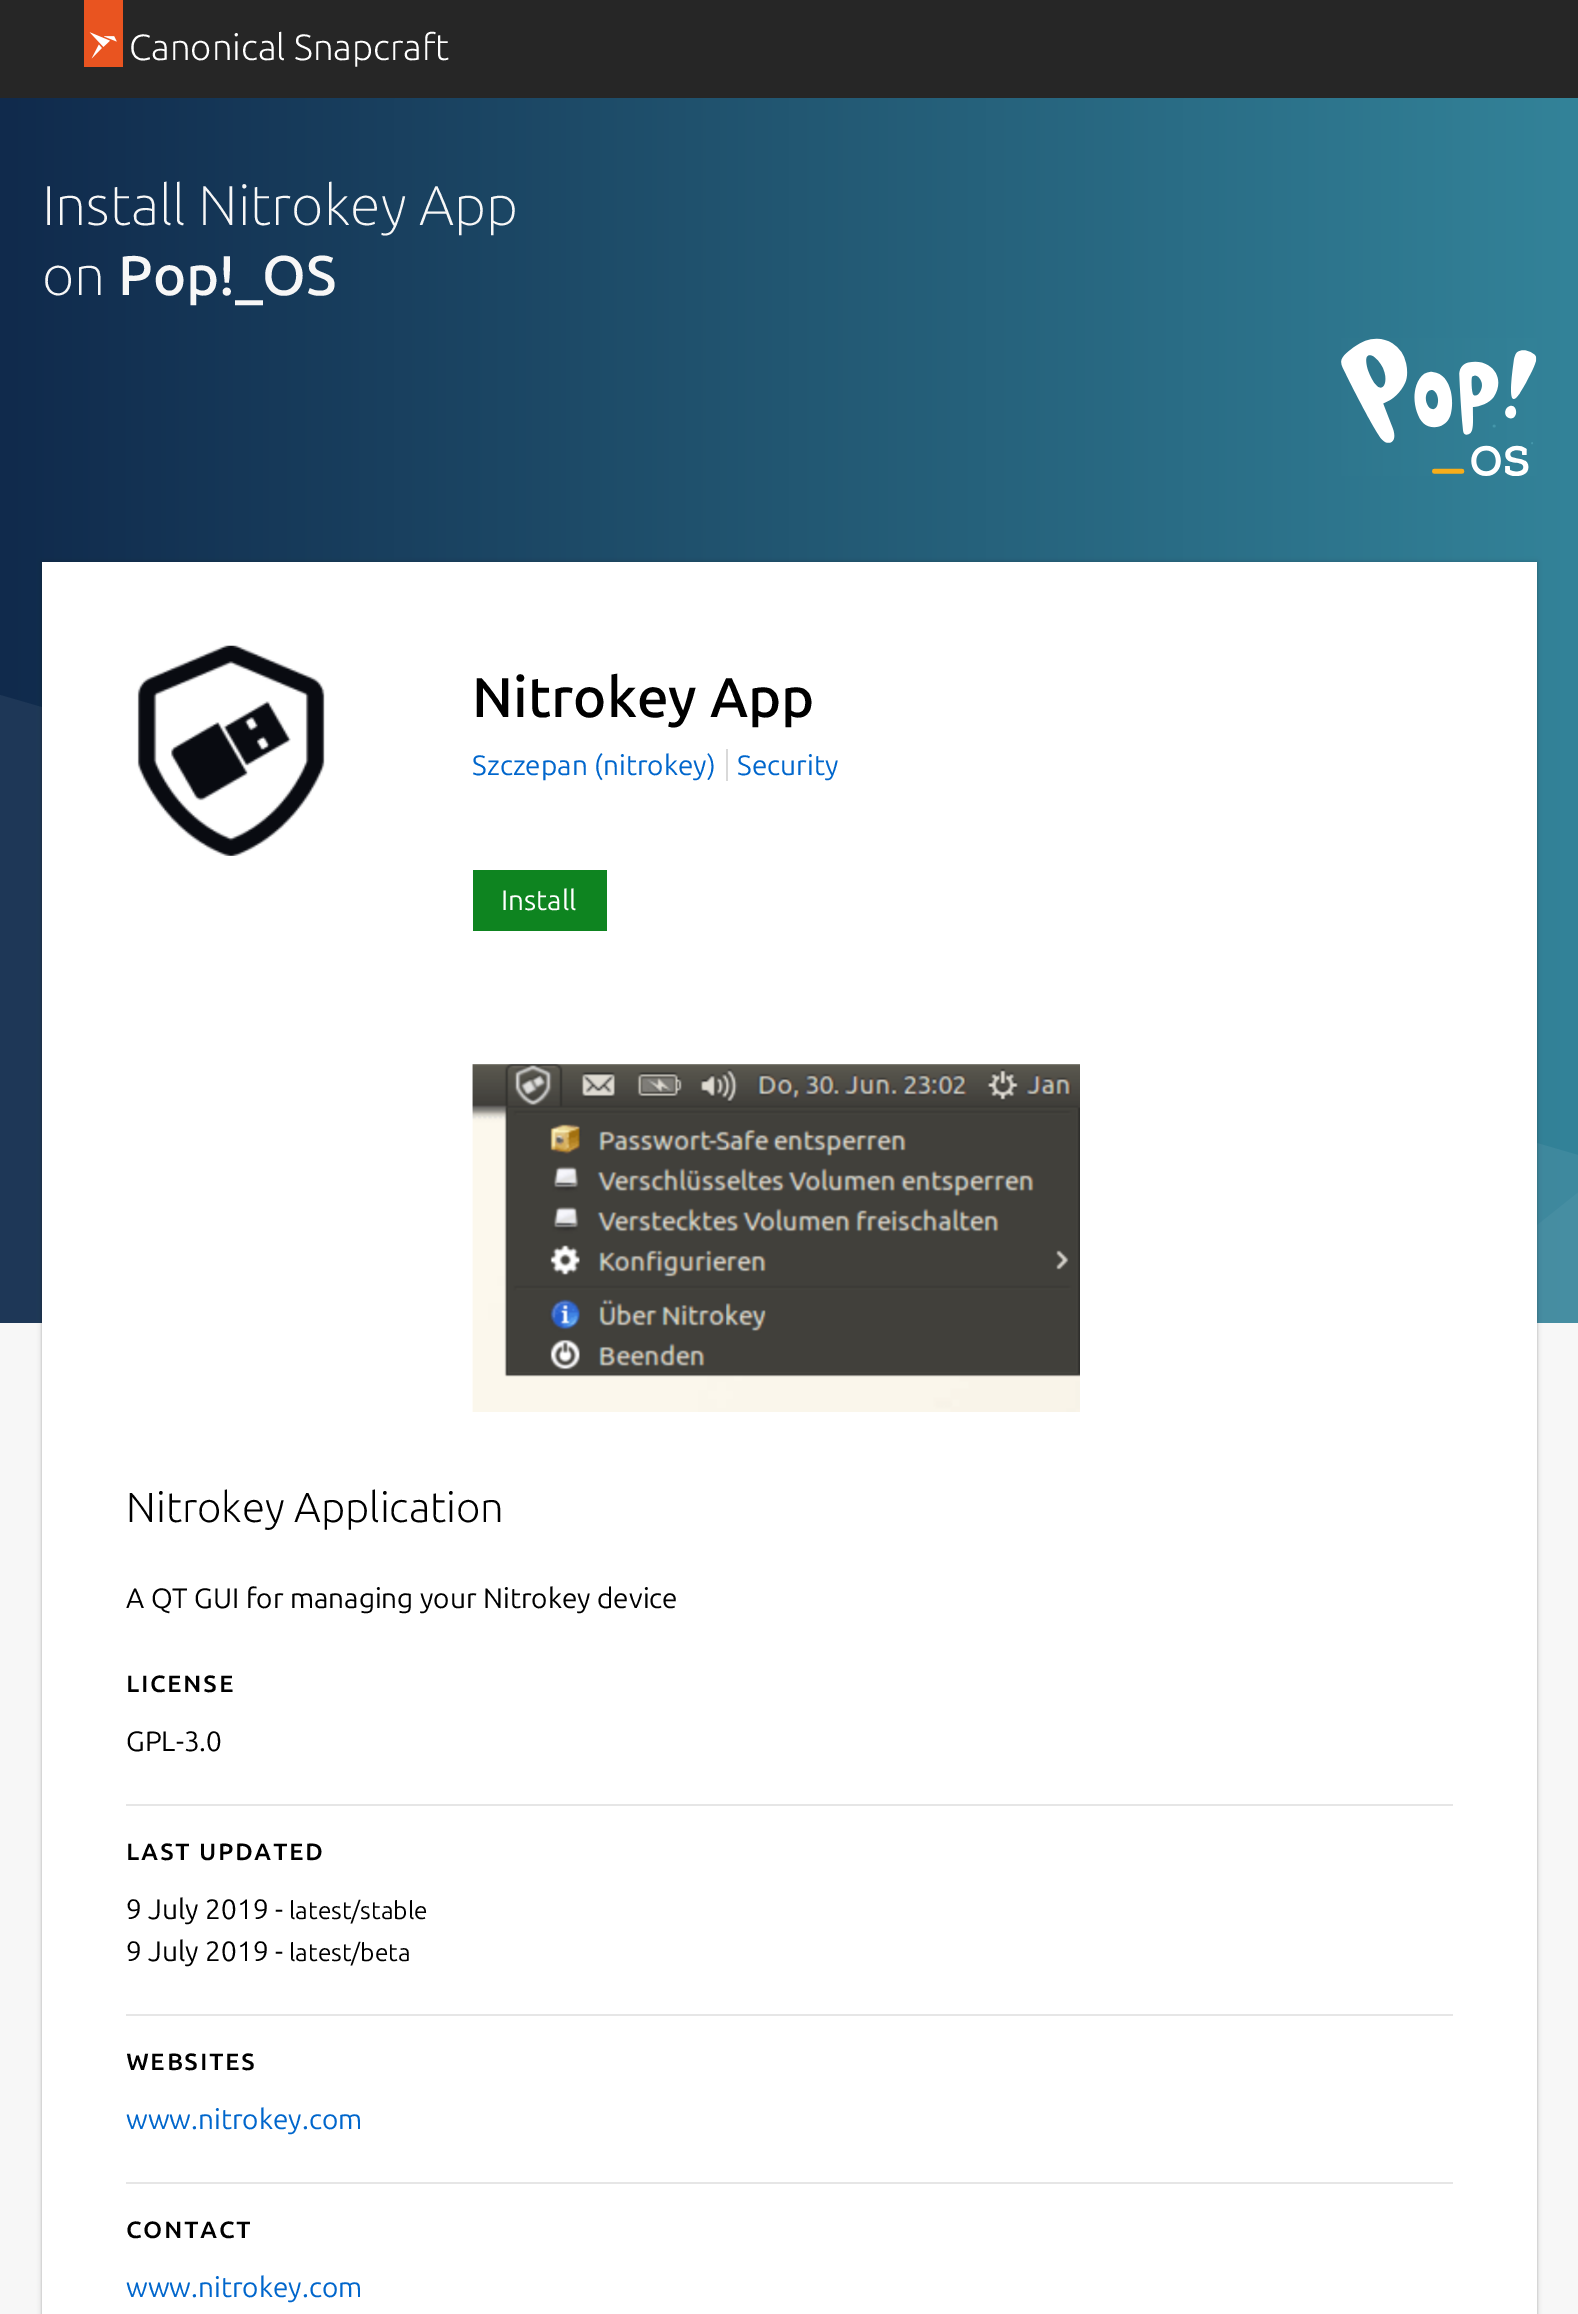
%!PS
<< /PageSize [1578 2314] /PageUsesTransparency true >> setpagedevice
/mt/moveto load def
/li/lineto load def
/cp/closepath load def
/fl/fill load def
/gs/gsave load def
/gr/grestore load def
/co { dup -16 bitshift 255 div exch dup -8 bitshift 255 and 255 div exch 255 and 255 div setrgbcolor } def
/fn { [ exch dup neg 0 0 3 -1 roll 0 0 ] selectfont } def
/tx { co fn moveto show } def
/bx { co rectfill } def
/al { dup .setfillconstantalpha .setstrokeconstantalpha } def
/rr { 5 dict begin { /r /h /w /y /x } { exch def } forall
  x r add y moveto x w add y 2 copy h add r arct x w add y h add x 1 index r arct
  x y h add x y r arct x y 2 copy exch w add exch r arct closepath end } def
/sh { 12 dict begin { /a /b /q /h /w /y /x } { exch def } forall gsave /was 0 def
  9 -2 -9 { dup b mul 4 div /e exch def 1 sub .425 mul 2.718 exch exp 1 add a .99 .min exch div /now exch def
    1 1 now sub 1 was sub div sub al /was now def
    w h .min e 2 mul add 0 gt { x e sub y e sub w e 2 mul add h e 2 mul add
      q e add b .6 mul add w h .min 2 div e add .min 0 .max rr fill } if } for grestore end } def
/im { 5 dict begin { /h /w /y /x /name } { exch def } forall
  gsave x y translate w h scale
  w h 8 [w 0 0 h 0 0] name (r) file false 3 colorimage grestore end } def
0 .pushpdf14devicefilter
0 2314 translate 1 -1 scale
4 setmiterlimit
0 0 1578 2314 16#F7F7F7 bx
0 0 1578 98 16#262626 bx
84 0 39 67 16#E95420 bx
(media/1.raw) 89 32 28 27 im
gs 0 98 mt 1578 98 li 1578 1323 li 0 1323 li cp clip newpath
<< /ShadingType 2 /ColorSpace /DeviceRGB /Coords [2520 711 0 711] /Extend [true true] /Function << /FunctionType 2 /Domain [0 1] /C0 [.282 .725 .78] /C1 [.063 .165 .298] /N 1 >> >> shfill gr
0.04 al
16#FFFFFF co
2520 1323 mt 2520 444 li 1414 1323 li cp fl
0.06 al
0 695 mt 0 1323 li 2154 1323 li cp fl
1 al
(media/2.raw) 1341 338 196 138 im
16#000000 co
42 562 1495 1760 0 2.5 .2 sh
42 564 1495 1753 0 1 .15 sh
42 562 1495 1752 16#FFFFFF bx
(media/3.raw) 137 645 188 211 im
726 749 2 32 16#D9D9D9 bx
473 870 134 61 16#0E8420 bx
(media/4.raw) 472 1064 608 348 im
126 1804 1327 2 16#E6E6E6 bx
126 2014 1327 2 16#E6E6E6 bx
126 2182 1327 2 16#E6E6E6 bx
(Canonical Snapcraft) 129 60 /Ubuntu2-Light 36.5 16#FFFFFF tx
(Install Nitrokey App) 42 225 /Ubuntu-ExtraLight 56 16#F7F7F7 tx
(on) 42 295 /Ubuntu-ExtraLight 56 16#F7F7F7 tx
(Pop!_OS) 118 295 /Ubuntu-Medium 56 16#F7F7F7 tx
(Nitrokey App) 472 717 /Ubuntu-Medium 56 16#000000 tx
(Szczepan \(nitrokey\)) 472 775 /Ubuntu-Regular 28 16#0066CC tx
(Security) 737 775 /Ubuntu-Regular 28 16#0066CC tx
(Install) 501 910 /Ubuntu-Regular 28 16#FFFFFF tx
(Nitrokey Application) 126 1522 /Ubuntu-Light 42 16#000000 tx
(A QT GUI for managing your Nitrokey device) 126 1608 /Ubuntu-Regular 28 16#000000 tx
/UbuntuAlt-Medium 28 fn
126 1692 mt 1.4 0 (License) ashow
(GPL-3.0) 126 1751 /Ubuntu-Regular 28 16#000000 tx
/UbuntuAlt-Medium 28 fn
126 1860 mt 1.4 0 (Last updated) ashow
(9 July 2019 -) 126 1919 /Ubuntu-Regular 28 16#000000 tx
(latest/stable) 289 1919 /Ubuntu-Regular 24.5 16#000000 tx
(9 July 2019 -) 126 1961 /Ubuntu-Regular 28 16#000000 tx
(latest/beta) 289 1961 /Ubuntu-Regular 24.5 16#000000 tx
/UbuntuAlt-Medium 28 fn
126 2070 mt 1.4 0 (Websites) ashow
(www.nitrokey.com) 126 2129 /Ubuntu-Regular 28 16#0066CC tx
/UbuntuAlt-Medium 28 fn
16#000000 co
126 2238 mt 1.4 0 (Contact) ashow
(www.nitrokey.com) 126 2297 /Ubuntu-Regular 28 16#0066CC tx
.poppdf14devicefilter showpage
